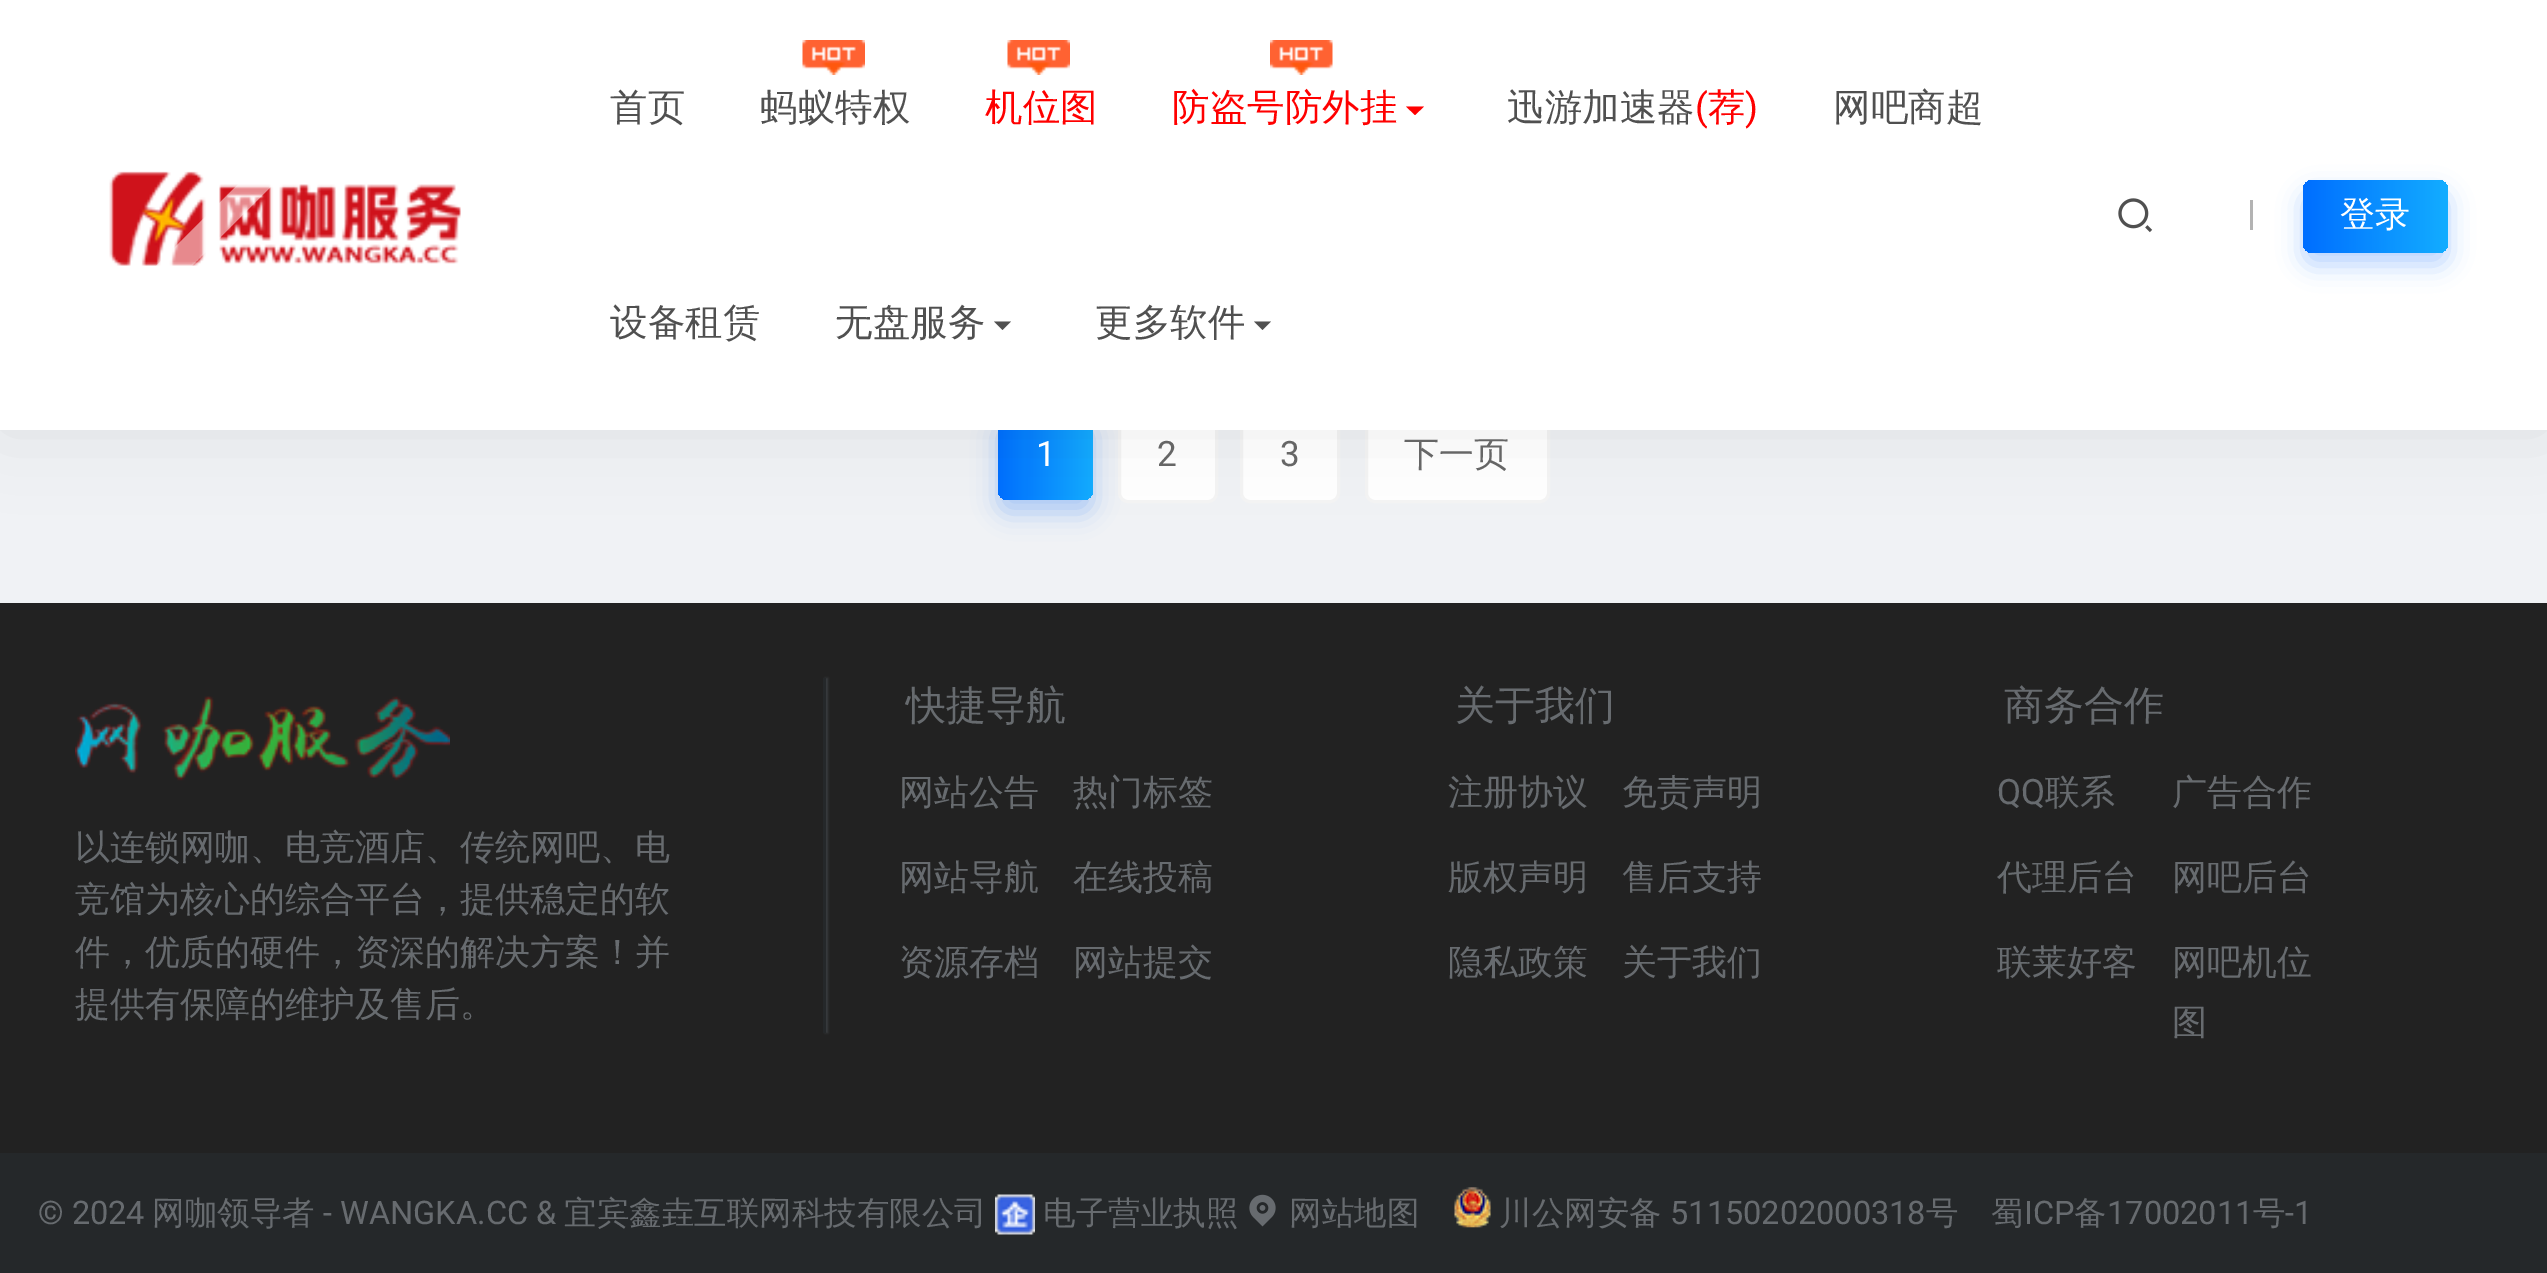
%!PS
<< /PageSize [2547 1273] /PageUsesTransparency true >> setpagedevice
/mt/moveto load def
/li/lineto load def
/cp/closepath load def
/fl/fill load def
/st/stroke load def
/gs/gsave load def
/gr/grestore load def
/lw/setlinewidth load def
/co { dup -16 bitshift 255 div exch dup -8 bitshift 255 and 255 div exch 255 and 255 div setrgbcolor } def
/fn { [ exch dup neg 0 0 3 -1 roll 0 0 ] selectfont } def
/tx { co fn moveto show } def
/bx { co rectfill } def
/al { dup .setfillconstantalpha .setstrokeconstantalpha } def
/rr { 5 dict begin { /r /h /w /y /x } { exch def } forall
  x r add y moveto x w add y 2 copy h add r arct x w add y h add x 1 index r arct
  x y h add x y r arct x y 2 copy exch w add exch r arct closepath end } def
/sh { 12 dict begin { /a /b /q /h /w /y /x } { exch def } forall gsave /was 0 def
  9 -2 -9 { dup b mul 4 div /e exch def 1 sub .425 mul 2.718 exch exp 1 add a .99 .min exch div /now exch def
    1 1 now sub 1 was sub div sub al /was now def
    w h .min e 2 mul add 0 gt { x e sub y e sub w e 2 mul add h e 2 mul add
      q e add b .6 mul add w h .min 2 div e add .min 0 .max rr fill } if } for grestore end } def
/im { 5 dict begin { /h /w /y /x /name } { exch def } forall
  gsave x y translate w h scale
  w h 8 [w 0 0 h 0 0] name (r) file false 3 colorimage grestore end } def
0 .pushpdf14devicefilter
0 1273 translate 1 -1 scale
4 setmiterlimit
0 0 2547 1273 16#F0F2F5 bx
16#106EFD co
998 425 95 88 10 12.5 .3 sh
gs 998 413 95 87 10 rr clip newpath
<< /ShadingType 2 /ColorSpace /DeviceRGB /Coords [998 456 1093 456] /Extend [true true] /Function << /FunctionType 2 /Domain [0 1] /C0 [0 .431 1] /C1 [.075 .678 1] /N 1 >> >> shfill gr
16#FFFFFF co
1119.5 411.5 97 90 8.5 rr gs fl gr
16#F4F4F4 co
3 lw
st
16#FFFFFF co
1241.5 411.5 97 90 8.5 rr gs fl gr
16#F4F4F4 co
st
16#FFFFFF co
1366.5 411.5 182 90 8.5 rr gs fl gr
16#F4F4F4 co
st
16#000000 co
0 0 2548 430 0 37.5 .07 sh
0 0 2547 430 16#FFFFFF bx
(media/1.raw) 109 171 352 95 im
0.5 al
142 280 mt 388 35 li 405 52 li 160 298 li cp fl
1 al
(media/2.raw) 802 40 63 35 im
(media/2.raw) 1007 40 63 35 im
(media/3.raw) 1270 40 63 35 im
16#FF0000 co
1415 115 mt 1406 106.5 li 1424 106.5 li cp fl
16#505050 co
1002.5 330 mt 994 321.5 li 1011 321.5 li cp fl
1262.5 330 mt 1254 321.5 li 1271 321.5 li cp fl
(media/4.raw) 2118 198 35 35 im
2250 200 3 30 16#B3B3B3 bx
16#106EFD co
2303 193 145 72 10 12.5 .3 sh
gs 2303 180 145 73 10 rr clip newpath
<< /ShadingType 2 /ColorSpace /DeviceRGB /Coords [2303 216 2448 216] /Extend [true true] /Function << /FunctionType 2 /Domain [0 1] /C0 [0 .431 1] /C1 [.075 .678 1] /N 1 >> >> shfill gr
0 603 2547 550 16#222222 bx
(media/5.raw) 75 696 375 85 im
16#393C40 co
825 678 3 355 0 1 1 sh
823 678 3 355 16#25282A bx
0 1153 2547 120 16#25282A bx
(media/6.raw) 995 1194 40 41 im
(media/7.raw) 1249 1194 27 33 im
(media/8.raw) 1454 1187 37 41 im
(首页) 610 120 /WenQuanYiZenHei-Medium 37.5 16#505050 tx
(蚂蚁特权) 760 120 /WenQuanYiZenHei-Medium 37.5 16#505050 tx
(机位图) 985 120 /WenQuanYiZenHei-Medium 37.5 16#FF0000 tx
(防盗号防外挂) 1172 120 /WenQuanYiZenHei-Medium 37.5 16#FF0000 tx
(迅游加速器) 1507 120 /WenQuanYiZenHei-Medium 37.5 16#505050 tx
(\() 1695 120 /Roboto-Regular 37.5 16#FF0000 tx
(荐) 1708 120 /WenQuanYiZenHei-Medium 37.5 16#FF0000 tx
(\)) 1745 120 /Roboto-Regular 37.5 16#FF0000 tx
(网吧商超) 1833 120 /WenQuanYiZenHei-Medium 37.5 16#505050 tx
(设备租赁) 610 335 /WenQuanYiZenHei-Medium 37.5 16#505050 tx
(无盘服务) 835 335 /WenQuanYiZenHei-Medium 37.5 16#505050 tx
(更多软件) 1095 335 /WenQuanYiZenHei-Medium 37.5 16#505050 tx
(登录) 2340 226 /WenQuanYiZenHei-Medium 35 16#FFFFFF tx
(1) 1036 466 /Roboto-Regular 35 16#FFFFFF tx
(2) 1157 466 /Roboto-Regular 35 16#666666 tx
(3) 1280 466 /Roboto-Regular 35 16#666666 tx
(下一页) 1404 466 /WenQuanYiZenHei-Medium 35 16#666666 tx
(以连锁网咖、电竞酒店、传统网吧、电) 75 859 /WenQuanYiZenHei-Medium 35 16#676B6F tx
(竞馆为核心的综合平台，提供稳定的软) 75 911 /WenQuanYiZenHei-Medium 35 16#676B6F tx
(件，优质的硬件，资深的解决方案！并) 75 964 /WenQuanYiZenHei-Medium 35 16#676B6F tx
(提供有保障的维护及售后。) 75 1016 /WenQuanYiZenHei-Medium 35 16#676B6F tx
(快捷导航) 906 719 /WenQuanYiZenHei-Medium 40 16#676B6F tx
(网站公告) 899 804 /WenQuanYiZenHei-Medium 35 16#676B6F tx
(热门标签) 1073 804 /WenQuanYiZenHei-Medium 35 16#676B6F tx
(网站导航) 899 889 /WenQuanYiZenHei-Medium 35 16#676B6F tx
(在线投稿) 1073 889 /WenQuanYiZenHei-Medium 35 16#676B6F tx
(资源存档) 899 974 /WenQuanYiZenHei-Medium 35 16#676B6F tx
(网站提交) 1073 974 /WenQuanYiZenHei-Medium 35 16#676B6F tx
(关于我们) 1455 719 /WenQuanYiZenHei-Medium 40 16#676B6F tx
(注册协议) 1448 804 /WenQuanYiZenHei-Medium 35 16#676B6F tx
(免责声明) 1622 804 /WenQuanYiZenHei-Medium 35 16#676B6F tx
(版权声明) 1448 889 /WenQuanYiZenHei-Medium 35 16#676B6F tx
(售后支持) 1622 889 /WenQuanYiZenHei-Medium 35 16#676B6F tx
(隐私政策) 1448 974 /WenQuanYiZenHei-Medium 35 16#676B6F tx
(关于我们) 1622 974 /WenQuanYiZenHei-Medium 35 16#676B6F tx
(商务合作) 2004 719 /WenQuanYiZenHei-Medium 40 16#676B6F tx
(QQ) 1997 804 /Roboto-Regular 35 16#676B6F tx
(联系) 2045 804 /WenQuanYiZenHei-Medium 35 16#676B6F tx
(广告合作) 2172 804 /WenQuanYiZenHei-Medium 35 16#676B6F tx
(代理后台) 1997 889 /WenQuanYiZenHei-Medium 35 16#676B6F tx
(网吧后台) 2172 889 /WenQuanYiZenHei-Medium 35 16#676B6F tx
(联莱好客) 1997 974 /WenQuanYiZenHei-Medium 35 16#676B6F tx
(网吧机位) 2172 974 /WenQuanYiZenHei-Medium 35 16#676B6F tx
(图) 2172 1034 /WenQuanYiZenHei-Medium 35 16#676B6F tx
(© 2024) 38 1224 /Roboto-Regular 32.5 16#676B6F tx
(网咖领导者) 152 1224 /WenQuanYiZenHei-Medium 32.5 16#676B6F tx
(- WANGKA.CC &) 323 1224 /Roboto-Regular 32.5 16#676B6F tx
(宜宾鑫垚互联网科技有限公司) 564 1224 /WenQuanYiZenHei-Medium 32.5 16#676B6F tx
(电子营业执照) 1043 1224 /WenQuanYiZenHei-Medium 32.5 16#676B6F tx
(网站地图) 1289 1224 /WenQuanYiZenHei-Medium 32.5 16#676B6F tx
(川公网安备) 1499 1224 /WenQuanYiZenHei-Medium 32.5 16#676B6F tx
(51150202000318) 1670 1224 /Roboto-Regular 32.5 16#676B6F tx
(号) 1926 1224 /WenQuanYiZenHei-Medium 32.5 16#676B6F tx
(蜀) 1991 1224 /WenQuanYiZenHei-Medium 32.5 16#676B6F tx
(ICP) 2024 1224 /Roboto-Regular 32.5 16#676B6F tx
(备) 2074 1224 /WenQuanYiZenHei-Medium 32.5 16#676B6F tx
(17002011) 2107 1224 /Roboto-Regular 32.5 16#676B6F tx
(号) 2253 1224 /WenQuanYiZenHei-Medium 32.5 16#676B6F tx
(-1) 2285 1224 /Roboto-Regular 32.5 16#676B6F tx
.poppdf14devicefilter showpage
